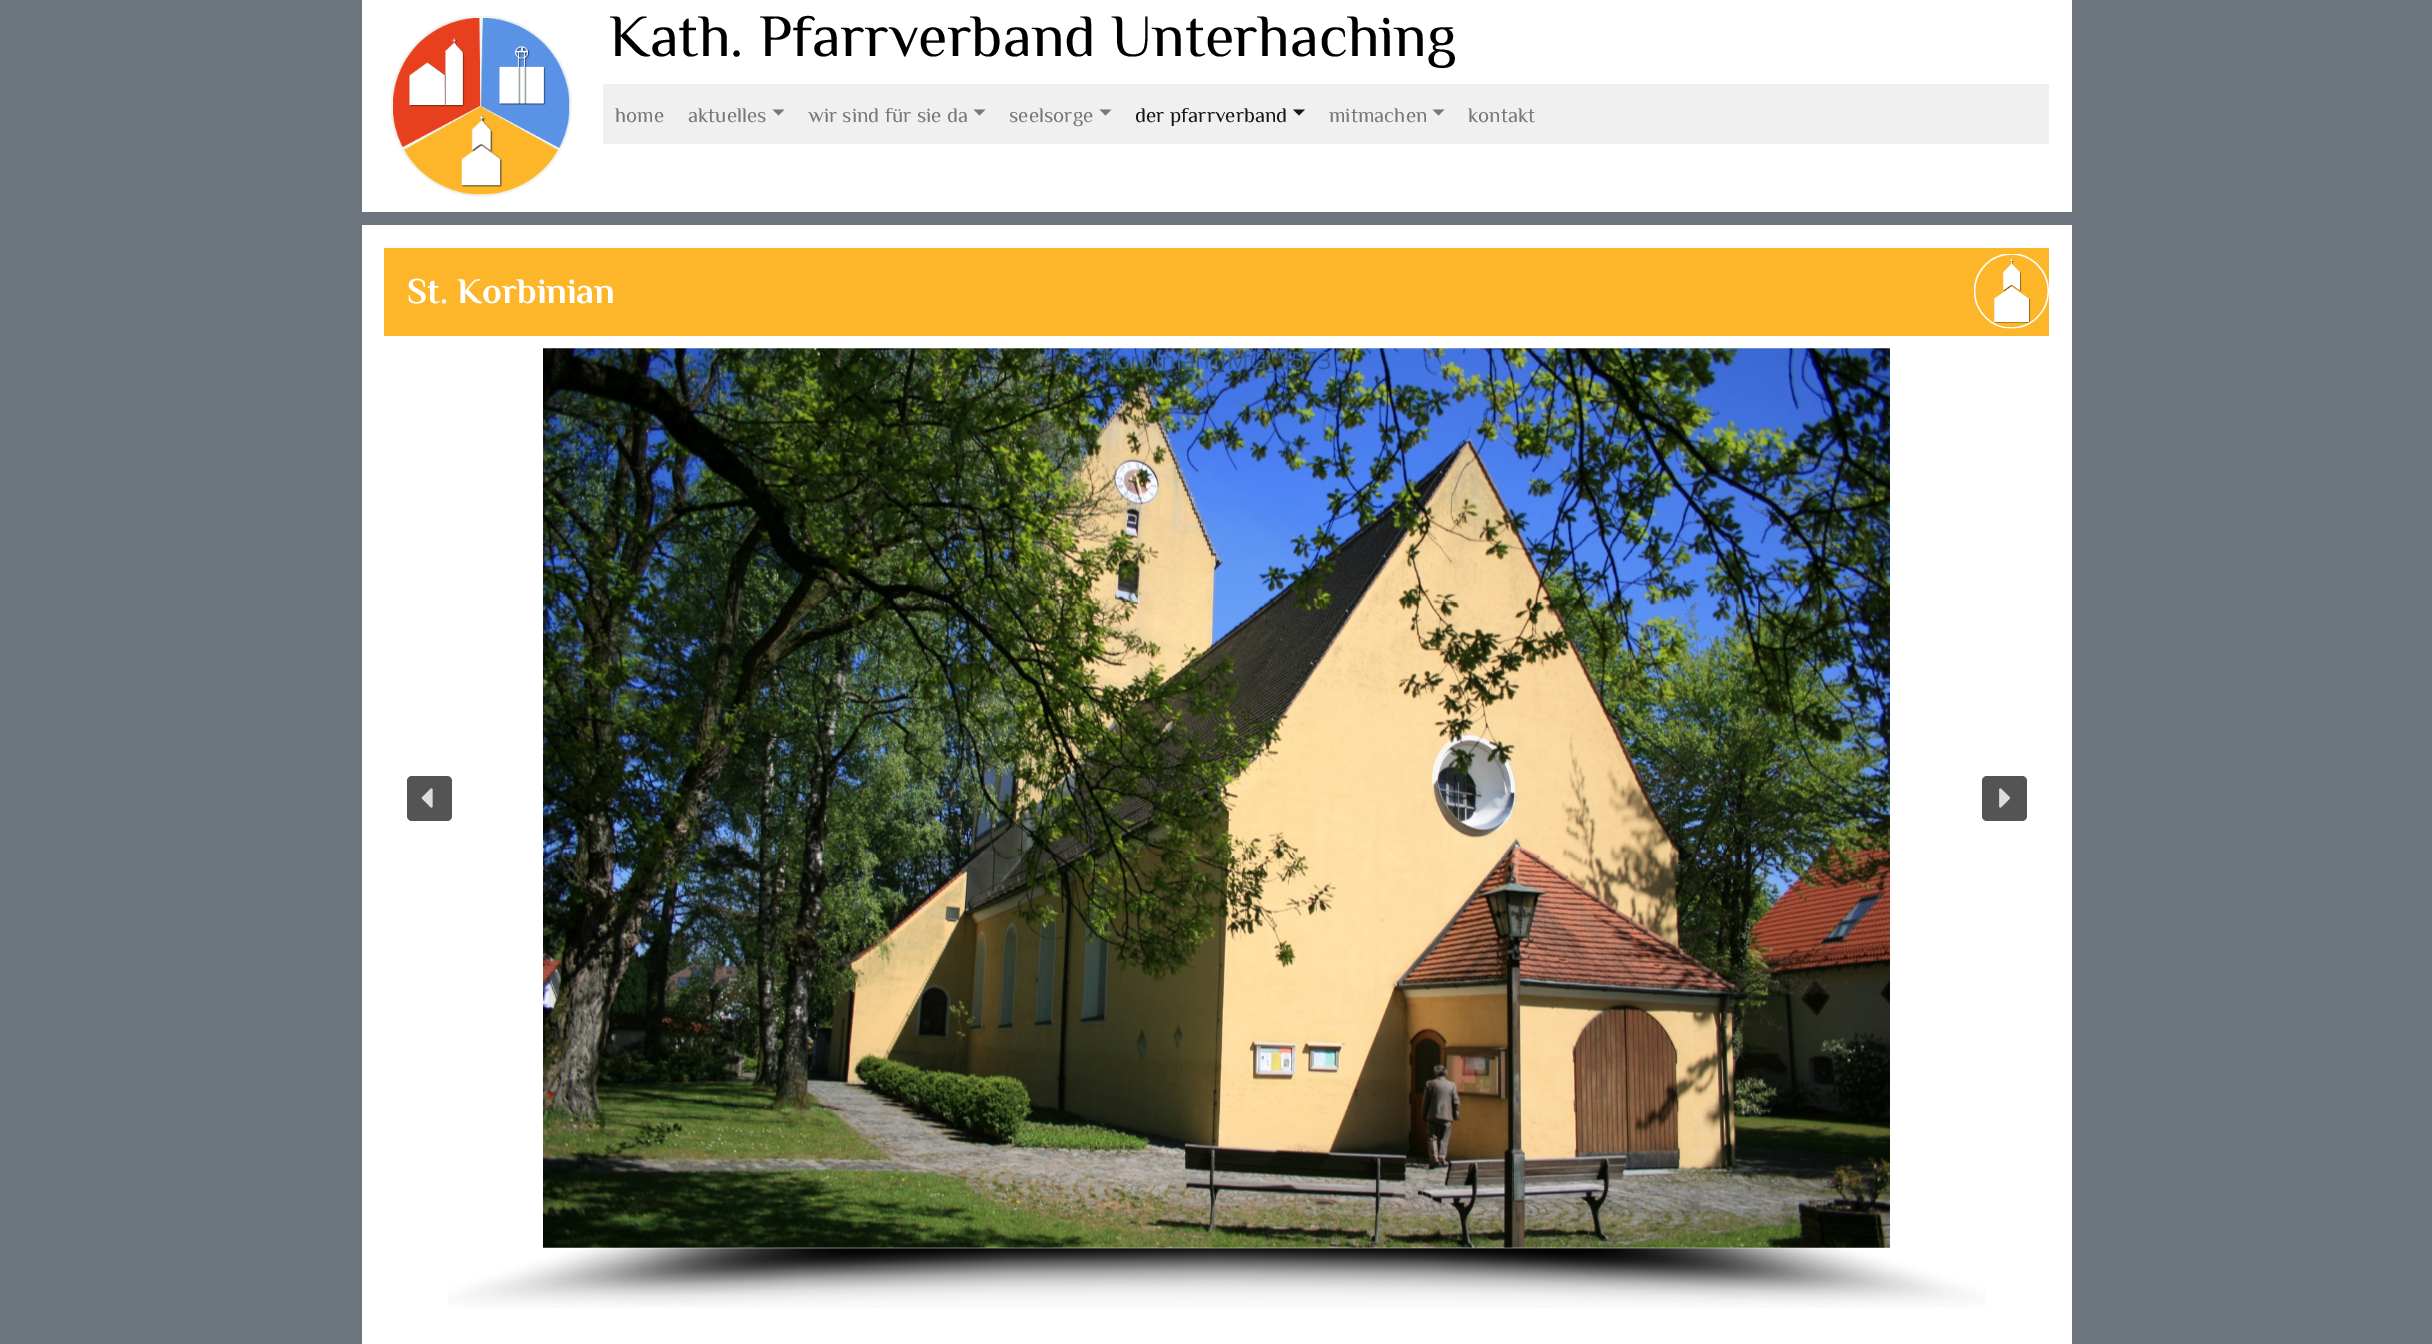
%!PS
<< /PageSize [2432 1344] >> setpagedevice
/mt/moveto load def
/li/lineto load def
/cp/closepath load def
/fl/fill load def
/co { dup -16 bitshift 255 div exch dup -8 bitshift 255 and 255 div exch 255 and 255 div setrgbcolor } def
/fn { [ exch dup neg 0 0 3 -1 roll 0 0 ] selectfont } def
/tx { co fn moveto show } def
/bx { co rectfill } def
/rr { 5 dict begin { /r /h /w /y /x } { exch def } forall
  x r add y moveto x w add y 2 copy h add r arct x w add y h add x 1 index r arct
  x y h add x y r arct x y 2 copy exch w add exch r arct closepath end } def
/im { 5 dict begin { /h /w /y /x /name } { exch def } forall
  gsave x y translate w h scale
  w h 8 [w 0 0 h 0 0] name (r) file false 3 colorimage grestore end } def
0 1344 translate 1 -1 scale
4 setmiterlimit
0 0 2432 1344 16#6C757D bx
362 0 1710 212 16#FFFFFF bx
(media/1.raw) 391 16 181 181 im
603 84 1446 60 16#F0F0F0 bx
16#787878 co
772.5 109.5 mt 784.5 109.5 li 778.5 115.5 li cp fl
973.5 109.5 mt 985.5 109.5 li 979.5 115.5 li cp fl
1099.5 109.5 mt 1111.5 109.5 li 1105.5 115.5 li cp fl
16#181818 co
1293 109.5 mt 1305 109.5 li 1299 115.5 li cp fl
16#787878 co
1432.5 109.5 mt 1444.5 109.5 li 1438.5 115.5 li cp fl
362 225 1710 1119 16#FFFFFF bx
384 248 1665 88 16#FDB62A bx
(media/2.raw) 1974 254 75 75 im
(media/6.raw) 448 1247 1538 61 im
(media/3.raw) 543 348 1347 900 im
16#545454 co
407 776 45 45 5 rr fl
(media/4.raw) 421 788 12 20 im
1982 776 45 45 5 rr fl
(media/5.raw) 1999 788 11 20 im
(Kath. Pfarrverband Unterhaching) 609 56 /Philosopher-Regular 60 16#000000 tx
(home) 615 122 /Philosopher-Regular 21 16#787878 tx
(aktuelles) 688 122 /Philosopher-Regular 21 16#787878 tx
(wir sind für sie da) 808 122 /Philosopher-Regular 21 16#787878 tx
(seelsorge) 1009 122 /Philosopher-Regular 21 16#787878 tx
(der pfarrverband) 1135 122 /Philosopher-Regular 21 16#181818 tx
(mitmachen) 1329 122 /Philosopher-Regular 21 16#787878 tx
(kontakt) 1468 122 /Philosopher-Regular 21 16#787878 tx
(St. Korbinian) 407 303 /Philosopher-Bold 36 16#FFFFFF tx
(Korbinian_IMG_3573) 1101 369 /OpenSans-Regular 24 16#365A8E tx
showpage
